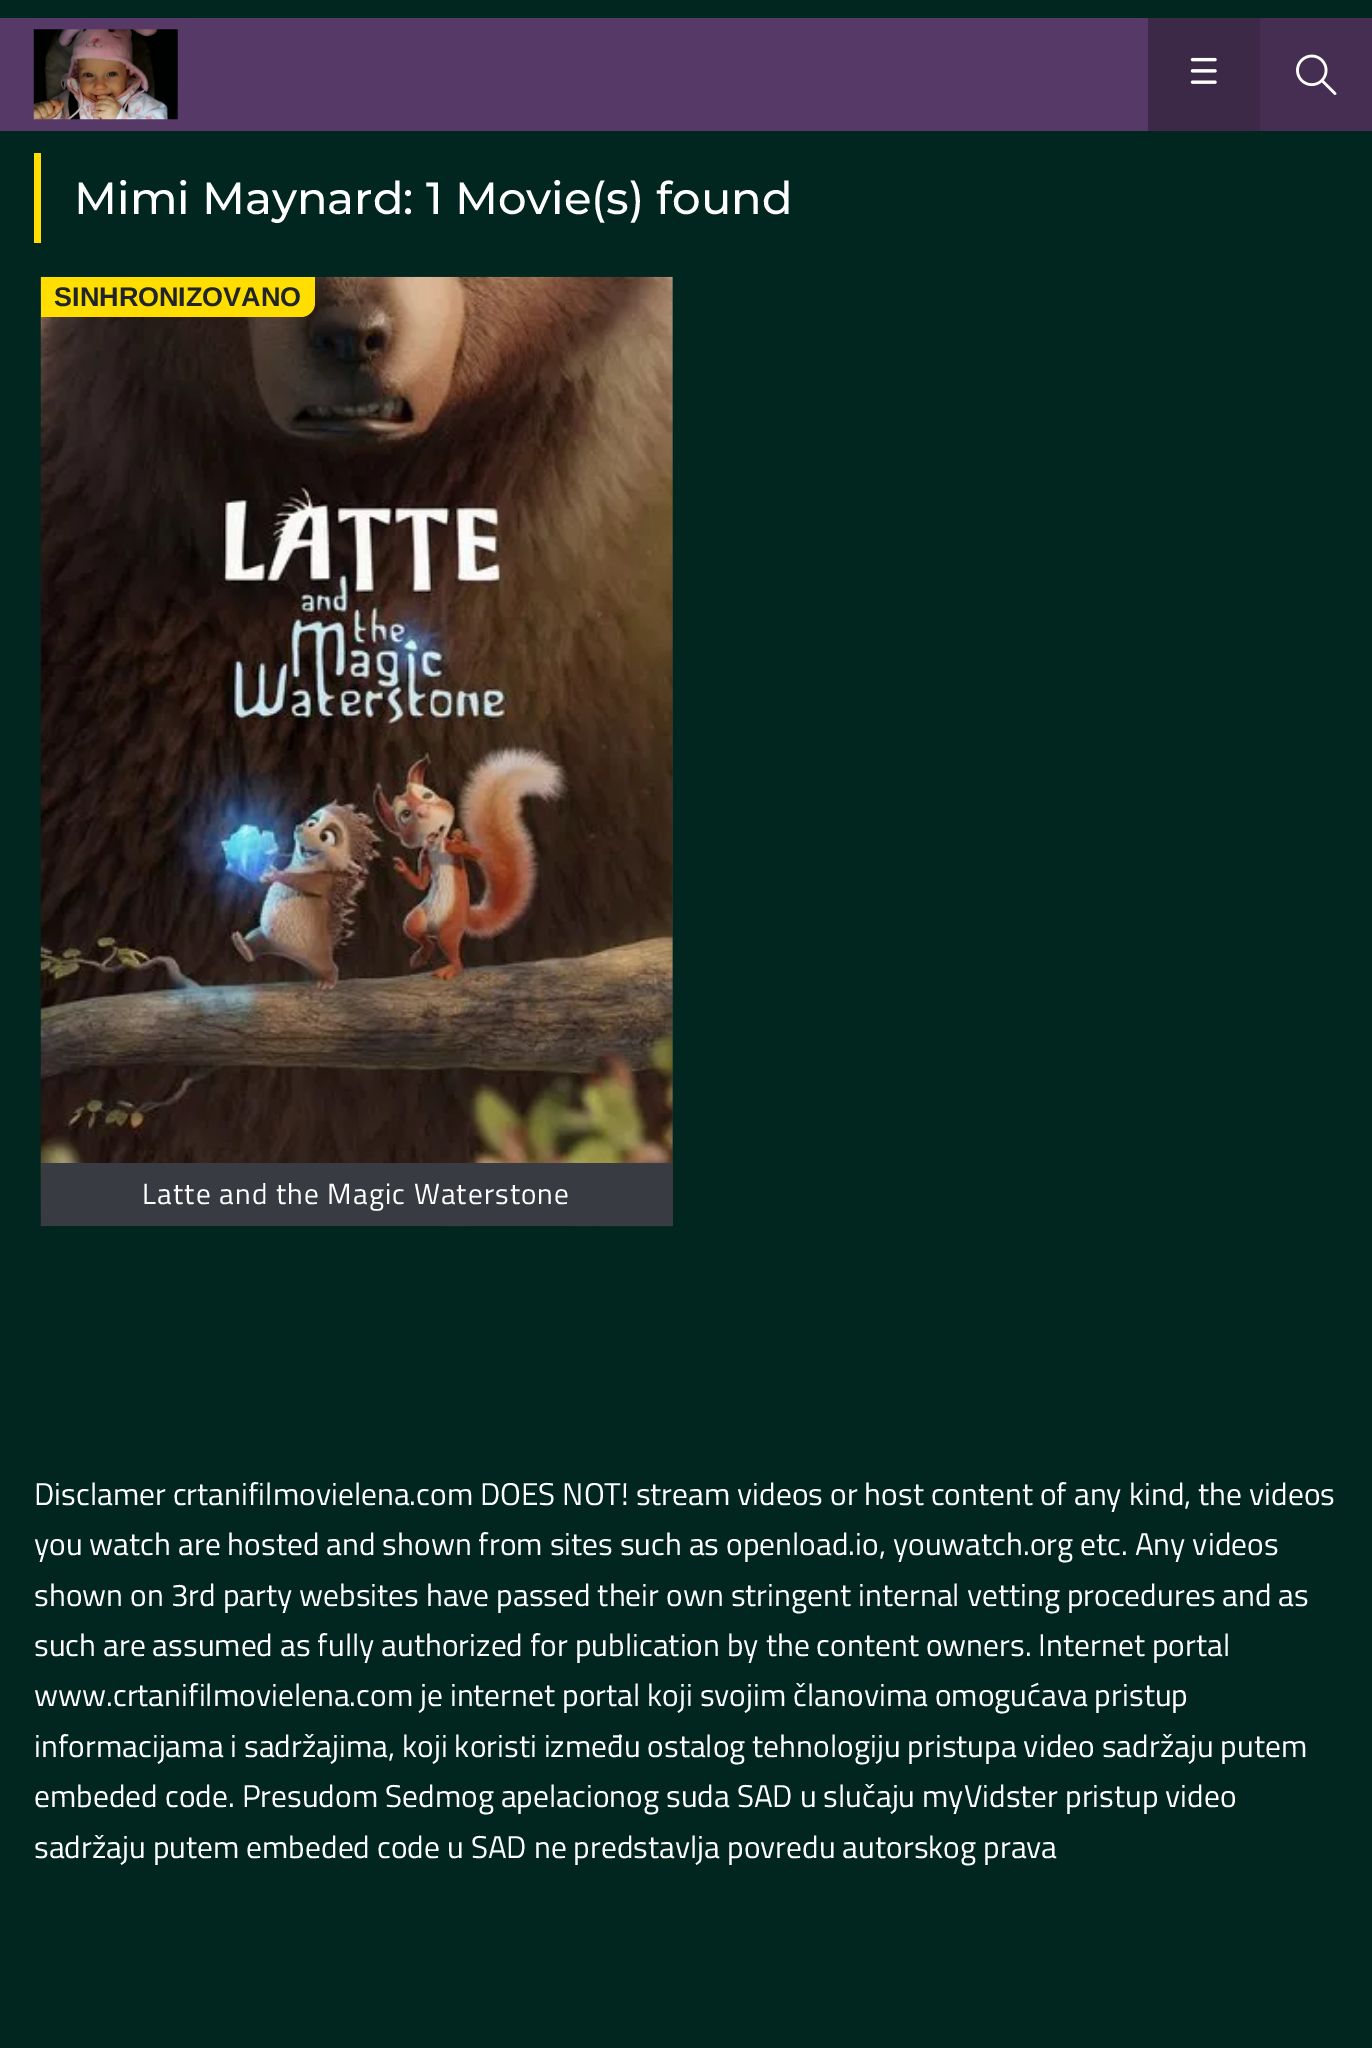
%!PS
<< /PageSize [1372 2048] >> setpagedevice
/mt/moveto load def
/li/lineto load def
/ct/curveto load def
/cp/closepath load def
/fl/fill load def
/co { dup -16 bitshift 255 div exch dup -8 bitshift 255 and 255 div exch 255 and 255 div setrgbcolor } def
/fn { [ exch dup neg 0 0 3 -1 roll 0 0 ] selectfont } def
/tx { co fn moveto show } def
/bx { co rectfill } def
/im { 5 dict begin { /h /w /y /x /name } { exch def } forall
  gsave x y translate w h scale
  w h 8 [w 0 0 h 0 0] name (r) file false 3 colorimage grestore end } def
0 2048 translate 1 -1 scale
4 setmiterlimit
0 0 1372 2048 16#00261F bx
0 18 1148 113 16#563966 bx
(media/1.raw) 33 29 145 91 im
1148 18 112 113 16#3C2847 bx
(media/2.raw) 1190 57 27 27 im
1260 18 112 113 16#452E52 bx
(media/3.raw) 1296 54 41 41 im
34 153 7 90 16#FFDE00 bx
672 277 1 886 16#1A3C35 bx
(media/4.raw) 40 276 633 951 im
16#FFDE00 co
41 277 mt 315 277 li 315 303 li 315 310.5 308.5 317 301 317 ct 41 317 li cp fl
41 1163 632 63 16#393B42 bx
(Mimi Maynard: 1 Movie\(s\) found) 74 214 /Montserrat-Medium 45 16#FFFFFF tx
(SINHRONIZOVANO) 54 306 /LiberationSans-Bold 27 16#212529 tx
/TitilliumWeb-Regular 29.25 fn
16#FFFFFF co
142 1204 mt 1.1 0 (Latte and the Magic Waterstone) ashow
(Disclamer crtanifilmovielena.com DOES NOT! stream videos or host content of any kind, the videos) 34 1505 /TitilliumWeb-Regular 31.5 16#FFFFFF tx
(you watch are hosted and shown from sites such as openload.io, youwatch.org etc. Any videos) 34 1555 /TitilliumWeb-Regular 31.5 16#FFFFFF tx
(shown on 3rd party websites have passed their own stringent internal vetting procedures and as) 34 1606 /TitilliumWeb-Regular 31.5 16#FFFFFF tx
(such are assumed as fully authorized for publication by the content owners. Internet portal) 34 1656 /TitilliumWeb-Regular 31.5 16#FFFFFF tx
(www.crtanifilmovielena.com je internet portal koji svojim članovima omogućava pristup) 34 1706 /TitilliumWeb-Regular 31.5 16#FFFFFF tx
(informacijama i sadržajima, koji koristi između ostalog tehnologiju pristupa video sadržaju putem) 34 1757 /TitilliumWeb-Regular 31.5 16#FFFFFF tx
(embeded code. Presudom Sedmog apelacionog suda SAD u slučaju myVidster pristup video) 34 1807 /TitilliumWeb-Regular 31.5 16#FFFFFF tx
(sadržaju putem embeded code u SAD ne predstavlja povredu autorskog prava) 34 1858 /TitilliumWeb-Regular 31.5 16#FFFFFF tx
showpage
